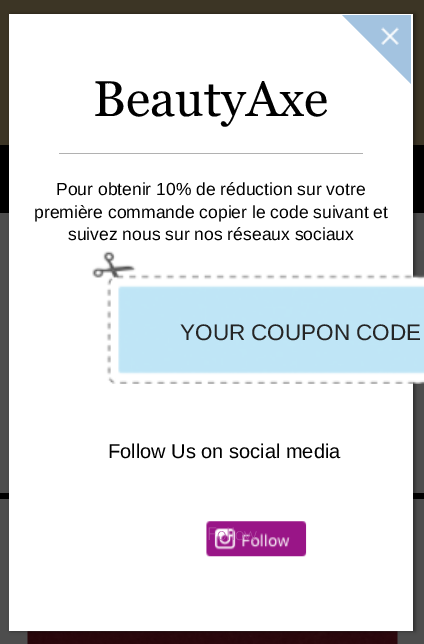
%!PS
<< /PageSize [424 644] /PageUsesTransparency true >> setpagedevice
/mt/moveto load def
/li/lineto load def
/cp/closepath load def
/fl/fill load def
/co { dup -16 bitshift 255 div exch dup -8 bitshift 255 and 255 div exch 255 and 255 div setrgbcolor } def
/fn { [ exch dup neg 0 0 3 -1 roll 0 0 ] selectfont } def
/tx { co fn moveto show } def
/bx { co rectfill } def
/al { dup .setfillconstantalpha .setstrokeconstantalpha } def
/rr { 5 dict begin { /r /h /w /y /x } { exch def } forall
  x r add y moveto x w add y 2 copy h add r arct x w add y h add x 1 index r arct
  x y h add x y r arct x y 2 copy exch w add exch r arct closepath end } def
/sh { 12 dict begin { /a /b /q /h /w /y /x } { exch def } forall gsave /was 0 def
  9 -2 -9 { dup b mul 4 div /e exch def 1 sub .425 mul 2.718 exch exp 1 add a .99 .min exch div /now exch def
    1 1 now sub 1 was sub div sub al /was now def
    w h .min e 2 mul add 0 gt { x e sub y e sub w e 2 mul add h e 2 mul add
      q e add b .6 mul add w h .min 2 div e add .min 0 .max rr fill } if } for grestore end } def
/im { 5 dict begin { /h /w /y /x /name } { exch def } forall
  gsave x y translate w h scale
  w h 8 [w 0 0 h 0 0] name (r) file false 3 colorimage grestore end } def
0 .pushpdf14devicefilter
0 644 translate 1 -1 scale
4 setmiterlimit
0 0 424 644 16#4D4D4D bx
0 0 424 145 16#3C3525 bx
0 145 424 68 16#000000 bx
0 493 424 6 16#000000 bx
(media/4.raw) 27 631 371 13 im
11 14 404 617 0 2 .45 sh
9 14 404 617 16#FFFFFF bx
16#A3C3E0 co
342 15 mt 411 15 li 411 84 li cp fl
(media/1.raw) 381 27 18 18 im
59 153 304 1 16#B1B1B1 bx
(media/2.raw) 92 251 332 133 im
(media/3.raw) 206 521 101 36 im
(BeautyAxe) 93 116 /Georgia-Regular 50 16#000000 tx
(Pour obtenir 10% de réduction sur votre) 56 195 /LiberationSans-Regular 17.5 16#000000 tx
(première commande copier le code suivant et) 34 218 /LiberationSans-Regular 17.5 16#000000 tx
(suivez nous sur nos réseaux sociaux) 68 240 /LiberationSans-Regular 17.5 16#000000 tx
(YOUR COUPON CODE) 180 340 /LiberationSans-Regular 22.5 16#252525 tx
(Follow Us on social media) 108 458 /LiberationSans-Regular 20 16#000000 tx
(Follow) 207 540 /Lato-Light 17.5 16#B352A6 tx
.poppdf14devicefilter showpage
